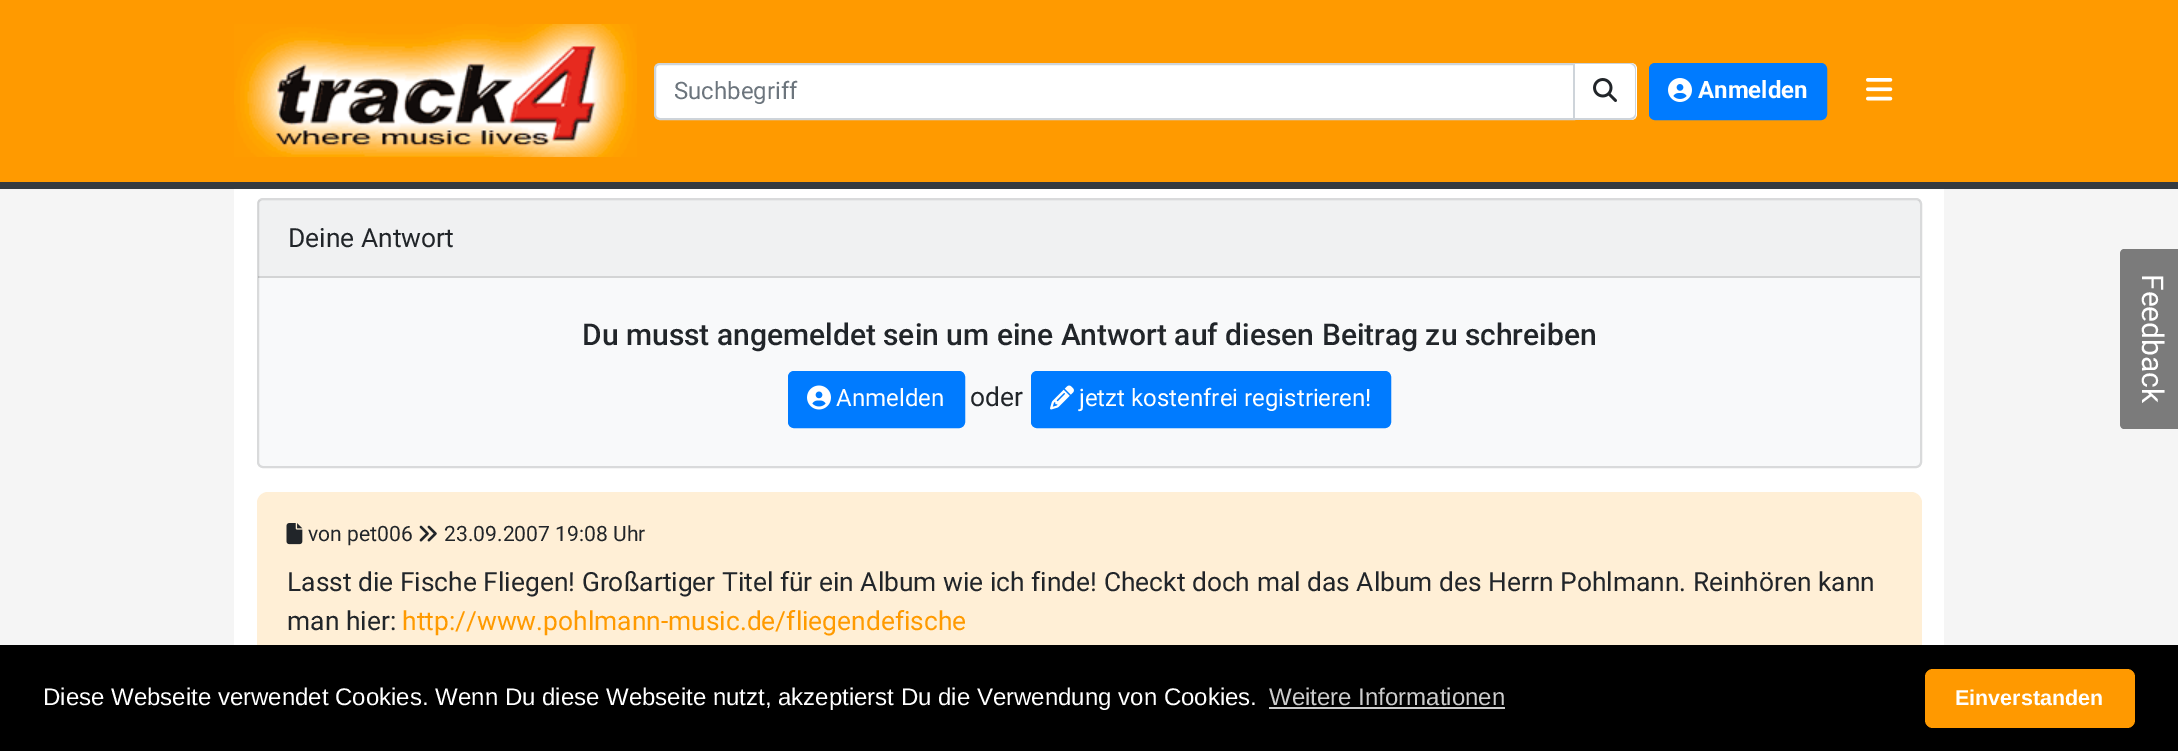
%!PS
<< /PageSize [2178 751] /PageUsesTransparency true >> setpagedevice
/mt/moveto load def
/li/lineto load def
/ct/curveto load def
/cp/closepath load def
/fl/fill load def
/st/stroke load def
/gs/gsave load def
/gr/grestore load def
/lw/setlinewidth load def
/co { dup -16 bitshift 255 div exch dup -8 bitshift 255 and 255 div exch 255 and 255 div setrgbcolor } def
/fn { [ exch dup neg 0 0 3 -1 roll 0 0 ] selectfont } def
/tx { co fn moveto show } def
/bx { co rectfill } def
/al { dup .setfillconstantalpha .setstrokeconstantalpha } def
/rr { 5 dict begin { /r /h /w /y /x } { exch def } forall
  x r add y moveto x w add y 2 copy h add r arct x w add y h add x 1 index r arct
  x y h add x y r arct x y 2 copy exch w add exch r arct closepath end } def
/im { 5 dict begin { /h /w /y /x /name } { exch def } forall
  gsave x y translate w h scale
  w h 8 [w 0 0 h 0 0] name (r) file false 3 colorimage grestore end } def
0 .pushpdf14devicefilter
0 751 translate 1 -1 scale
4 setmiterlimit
0 0 2178 751 16#F5F5F5 bx
0 0 2178 182 16#FF9A00 bx
0 182 2178 7 16#343A40 bx
(media/1.raw) 234 24 403 133 im
16#FFFFFF co
660 64 mt 1574 64 li 1574 119 li 660 119 li 657 119 655 117 655 114 ct 655 69 li 655 66 657 64 660 64 ct cp gs fl gr
16#CED4DA co
2 lw
st
16#FFFFFF co
1575 63 mt 1631 63 li 1634.5 63 1637 65.5 1637 69 ct 1637 114 li 1637 117.5 1634.5 120 1631 120 ct 1575 120 li cp fl
16#CED4DA co
1575 63 mt 1630 63 li 1634 63 1636 66 1636 69 ct 1636 114 li 1636 117 1634 120 1630 120 ct 1575 120 li cp 1575 64 mt 1630 64 li 1633 64 1635 67 1635 69 ct 1635 114 li 1635 116 1633 118 1630 118 ct 1575 118 li cp eofill
(media/2.raw) 1593 78 24 24 im
16#007BFF co
1650 64 176 55 5 rr gs fl gr
st
(media/3.raw) 1668 78 24 24 im
(media/4.raw) 1866 78 27 23 im
234 189 1710 456 16#FFFFFF bx
16#F8F9FA co
258 199 1663 268 5 rr gs fl gr
16#D9DADB co
st
0.03 al
258 200 1662 78 16#000000 bx
0.12 al
258 276 1662 2 16#000000 bx
1 al
16#007BFF co
789 372 175 55 5 rr gs fl gr
st
(media/5.raw) 807 385 24 25 im
1032 372 358 55 5 rr gs fl gr
st
(media/6.raw) 1050 385 24 25 im
16#FFEFD6 co
257 492 1665 255 11 rr fl
(media/7.raw) 286 523 17 22 im
(media/8.raw) 419 525 18 17 im
16#7B7B7B co
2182 254 mt 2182 424 li 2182 427 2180 429 2178 429 ct 2124 429 li 2122 429 2120 427 2120 424 ct 2120 254 li 2120 251 2122 249 2124 249 ct 2178 249 li 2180 249 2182 251 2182 254 ct cp fl
0 645 2178 106 16#000000 bx
1269 707 236 2 16#CCCCCC bx
16#FF9900 co
1925 669 210 59 8 rr fl
(Suchbegriff) 674 99 /Roboto-Regular 24 16#6C757D tx
(Anmelden) 1698 98 /Roboto-Bold 24 16#FFFFFF tx
(Deine Antwort) 288 247 /Roboto-Regular 26.4 16#212529 tx
(Du musst angemeldet sein um eine Antwort auf diesen Beitrag zu schreiben) 582 345 /Roboto-Medium 30 16#212529 tx
(Anmelden) 836 406 /Roboto-Regular 24 16#FFFFFF tx
(oder) 970 406 /Roboto-Regular 26.4 16#212529 tx
(jetzt kostenfrei registrieren!) 1079 406 /Roboto-Regular 24 16#FFFFFF tx
(von pet006) 308 541 /Roboto-Regular 21.1 16#212529 tx
(23.09.2007 19:08 Uhr) 444 541 /Roboto-Regular 21.1 16#212529 tx
(Lasst die Fische Fliegen! Großartiger Titel für ein Album wie ich finde! Checkt doch mal das Album des Herrn Pohlmann. Reinhören kann) 287 591 /Roboto-Regular 26.4 16#212529 tx
(man hier:) 287 630 /Roboto-Regular 26.4 16#212529 tx
(http://www.pohlmann-music.de/fliegendefische) 402 630 /Roboto-Regular 26.4 16#FF9A00 tx
/Roboto-Regular 30 fn
16#FFFFFF co
gs 2142 274 translate 90 rotate 0 0 mt (Feedback) show gr
(Diese Webseite verwendet Cookies. Wenn Du diese Webseite nutzt, akzeptierst Du die Verwendung von Cookies.) 43 705 /LiberationSans-Regular 24 16#FFFFFF tx
(Weitere Informationen) 1269 705 /LiberationSans-Regular 24 16#CCCCCC tx
(Einverstanden) 1955 705 /LiberationSans-Bold 21.5 16#FFFFFF tx
.poppdf14devicefilter showpage
